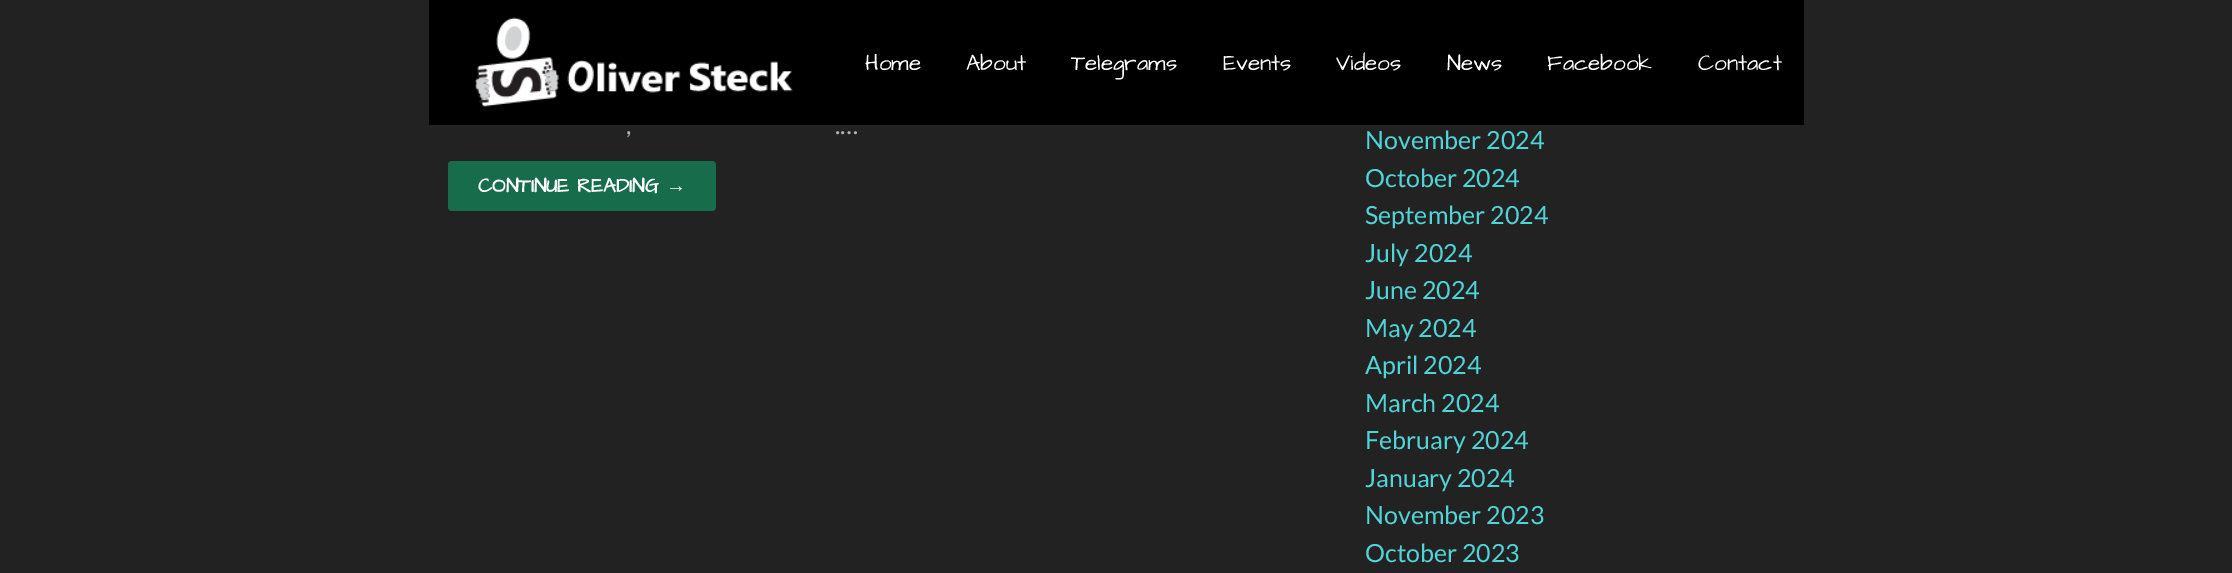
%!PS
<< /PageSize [2232 573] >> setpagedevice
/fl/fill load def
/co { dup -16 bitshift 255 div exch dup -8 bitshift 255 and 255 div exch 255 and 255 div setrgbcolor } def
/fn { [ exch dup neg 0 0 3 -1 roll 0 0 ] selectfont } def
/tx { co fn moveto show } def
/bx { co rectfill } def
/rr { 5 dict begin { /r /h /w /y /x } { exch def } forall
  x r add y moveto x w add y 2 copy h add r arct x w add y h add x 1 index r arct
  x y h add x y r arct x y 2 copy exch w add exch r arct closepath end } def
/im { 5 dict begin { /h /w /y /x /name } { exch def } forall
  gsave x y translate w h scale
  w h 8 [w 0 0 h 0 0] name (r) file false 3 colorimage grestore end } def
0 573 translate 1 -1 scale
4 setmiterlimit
0 0 2232 573 16#222222 bx
429 0 1375 125 16#000000 bx
(media/1.raw) 475 17 318 90 im
16#176D4B co
448 161 268 50 4 rr fl
(Home) 865 70 /ArchitectsDaughter-Regular 22.5 16#FFFFFF tx
(About) 966 70 /ArchitectsDaughter-Regular 22.5 16#FFFFFF tx
(Telegrams) 1071 70 /ArchitectsDaughter-Regular 22.5 16#FFFFFF tx
(Events) 1223 70 /ArchitectsDaughter-Regular 22.5 16#FFFFFF tx
(Videos) 1336 70 /ArchitectsDaughter-Regular 22.5 16#FFFFFF tx
(News) 1447 70 /ArchitectsDaughter-Regular 22.5 16#FFFFFF tx
(Facebook) 1547 70 /ArchitectsDaughter-Regular 22.5 16#FFFFFF tx
(Contact) 1698 70 /ArchitectsDaughter-Regular 22.5 16#FFFFFF tx
(,) 626 134 /Lato-Regular 25 16#B2B2B2 tx
(.…) 835 134 /Lato-Regular 25 16#B2B2B2 tx
(CONTINUE READING) 478 192 /ArchitectsDaughter-Bold 20 16#FFFFFF tx
(→) 666 192 /LiberationSans-Bold 20 16#FFFFFF tx
(November 2024) 1365 149 /Lato-Regular 25 16#50D4D8 tx
(October 2024) 1365 187 /Lato-Regular 25 16#50D4D8 tx
(September 2024) 1365 224 /Lato-Regular 25 16#50D4D8 tx
(July 2024) 1365 262 /Lato-Regular 25 16#50D4D8 tx
(June 2024) 1365 299 /Lato-Regular 25 16#50D4D8 tx
(May 2024) 1365 337 /Lato-Regular 25 16#50D4D8 tx
(April 2024) 1365 374 /Lato-Regular 25 16#50D4D8 tx
(March 2024) 1365 412 /Lato-Regular 25 16#50D4D8 tx
(February 2024) 1365 449 /Lato-Regular 25 16#50D4D8 tx
(January 2024) 1365 487 /Lato-Regular 25 16#50D4D8 tx
(November 2023) 1365 524 /Lato-Regular 25 16#50D4D8 tx
(October 2023) 1365 562 /Lato-Regular 25 16#50D4D8 tx
showpage
